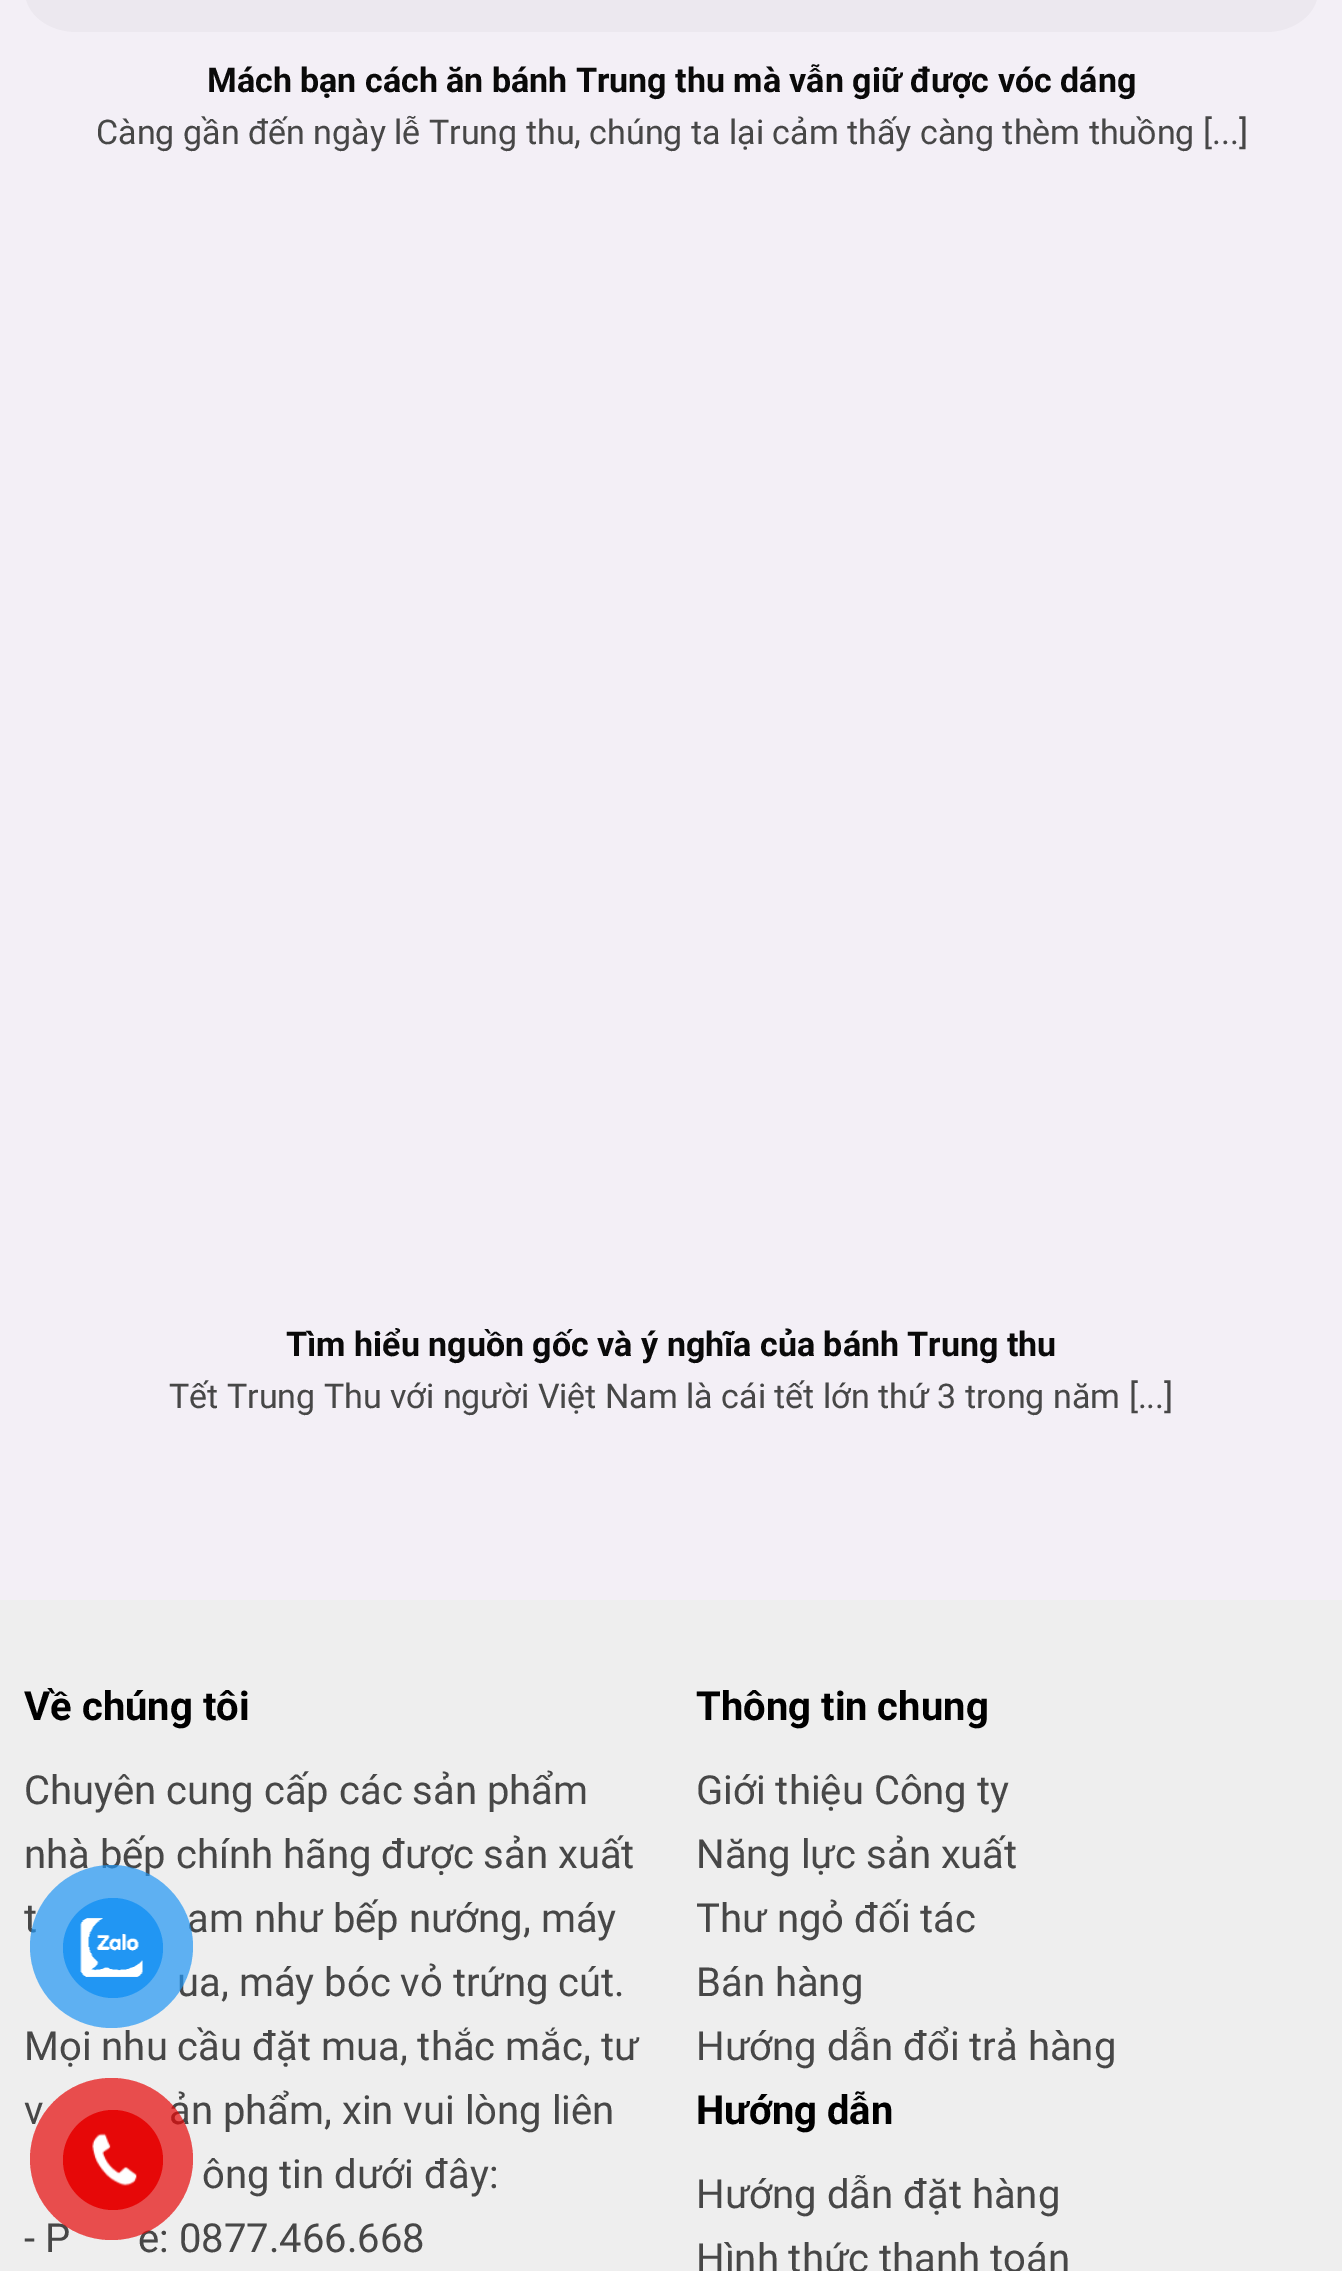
%!PS
<< /PageSize [1342 2271] /PageUsesTransparency true >> setpagedevice
/mt/moveto load def
/li/lineto load def
/ct/curveto load def
/cp/closepath load def
/fl/fill load def
/co { dup -16 bitshift 255 div exch dup -8 bitshift 255 and 255 div exch 255 and 255 div setrgbcolor } def
/fn { [ exch dup neg 0 0 3 -1 roll 0 0 ] selectfont } def
/tx { co fn moveto show } def
/bx { co rectfill } def
/al { dup .setfillconstantalpha .setstrokeconstantalpha } def
/ci { newpath 0 360 arc closepath } def
/rr { 5 dict begin { /r /h /w /y /x } { exch def } forall
  x r add y moveto x w add y 2 copy h add r arct x w add y h add x 1 index r arct
  x y h add x y r arct x y 2 copy exch w add exch r arct closepath end } def
/im { 5 dict begin { /h /w /y /x /name } { exch def } forall
  gsave x y translate w h scale
  w h 8 [w 0 0 h 0 0] name (r) file false 3 colorimage grestore end } def
0 .pushpdf14devicefilter
0 2271 translate 1 -1 scale
4 setmiterlimit
0 0 1342 2271 16#F3EFF6 bx
16#ECE8EF co
25 -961 mt 25 -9 li 25 14 48 32 77 32 ct 1266 32 li 1294 32 1318 14 1318 -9 ct 1318 -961 li 1318 -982 1299 -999 1274 -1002 ct 69 -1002 li 44 -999 25 -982 25 -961 ct cp fl
0 1600 1342 671 16#EEEEEE bx
(Mách bạn cách ăn bánh Trung thu mà vẫn giữ được vóc dáng) 207 92 /Roboto-Bold 34 16#0A0A0A tx
(Càng gần đến ngày lễ Trung thu, chúng ta lại cảm thấy càng thèm thuồng [...]) 96 144 /Roboto-Regular 34 16#474747 tx
(Tìm hiểu nguồn gốc và ý nghĩa của bánh Trung thu) 286 1356 /Roboto-Bold 34 16#0A0A0A tx
(Tết Trung Thu với người Việt Nam là cái tết lớn thứ 3 trong năm [...]) 169 1408 /Roboto-Regular 34 16#474747 tx
(Về chúng tôi) 24 1720 /Roboto-Bold 40 16#000000 tx
(Chuyên cung cấp các sản phẩm) 24 1804 /Roboto-Regular 40 16#474747 tx
(nhà bếp chính hãng được sản xuất) 24 1868 /Roboto-Regular 40 16#474747 tx
(t) 24 1932 /Roboto-Regular 40 16#474747 tx
(am như bếp nướng, máy) 187 1932 /Roboto-Regular 40 16#474747 tx
(ua, máy bóc vỏ trứng cút.) 177 1996 /Roboto-Regular 40 16#474747 tx
(Mọi nhu cầu đặt mua, thắc mắc, tư) 24 2060 /Roboto-Regular 40 16#474747 tx
(v) 24 2124 /Roboto-Regular 40 16#474747 tx
(ản phẩm, xin vui lòng liên) 169 2124 /Roboto-Regular 40 16#474747 tx
(ông tin dưới đây:) 202 2188 /Roboto-Regular 40 16#474747 tx
(- P) 24 2252 /Roboto-Regular 40 16#474747 tx
(e: 0877.466.668) 138 2252 /Roboto-Regular 40 16#474747 tx
(Thông tin chung) 696 1720 /Roboto-Bold 40 16#000000 tx
(Giới thiệu Công ty) 696 1804 /Roboto-Regular 40 16#474747 tx
(Năng lực sản xuất) 696 1868 /Roboto-Regular 40 16#474747 tx
(Thư ngỏ đối tác) 696 1932 /Roboto-Regular 40 16#474747 tx
(Bán hàng) 696 1996 /Roboto-Regular 40 16#474747 tx
(Hướng dẫn đổi trả hàng) 696 2060 /Roboto-Regular 40 16#474747 tx
(Hướng dẫn) 696 2124 /Roboto-Bold 40 16#000000 tx
(Hướng dẫn đặt hàng) 696 2208 /Roboto-Regular 40 16#474747 tx
(Hình thức thanh toán) 696 2272 /Roboto-Regular 40 16#474747 tx
0.7 al
16#2196F3 co
111.5 1946.5 81.5 ci fl
1 al
113 1948 50 ci fl
(media/1.raw) 80 1918 63 59 im
0.7 al
16#E60808 co
30 2078 163 162 81 rr fl
1 al
113 2160 50 ci fl
(media/2.raw) 92 2133 45 53 im
.poppdf14devicefilter showpage
